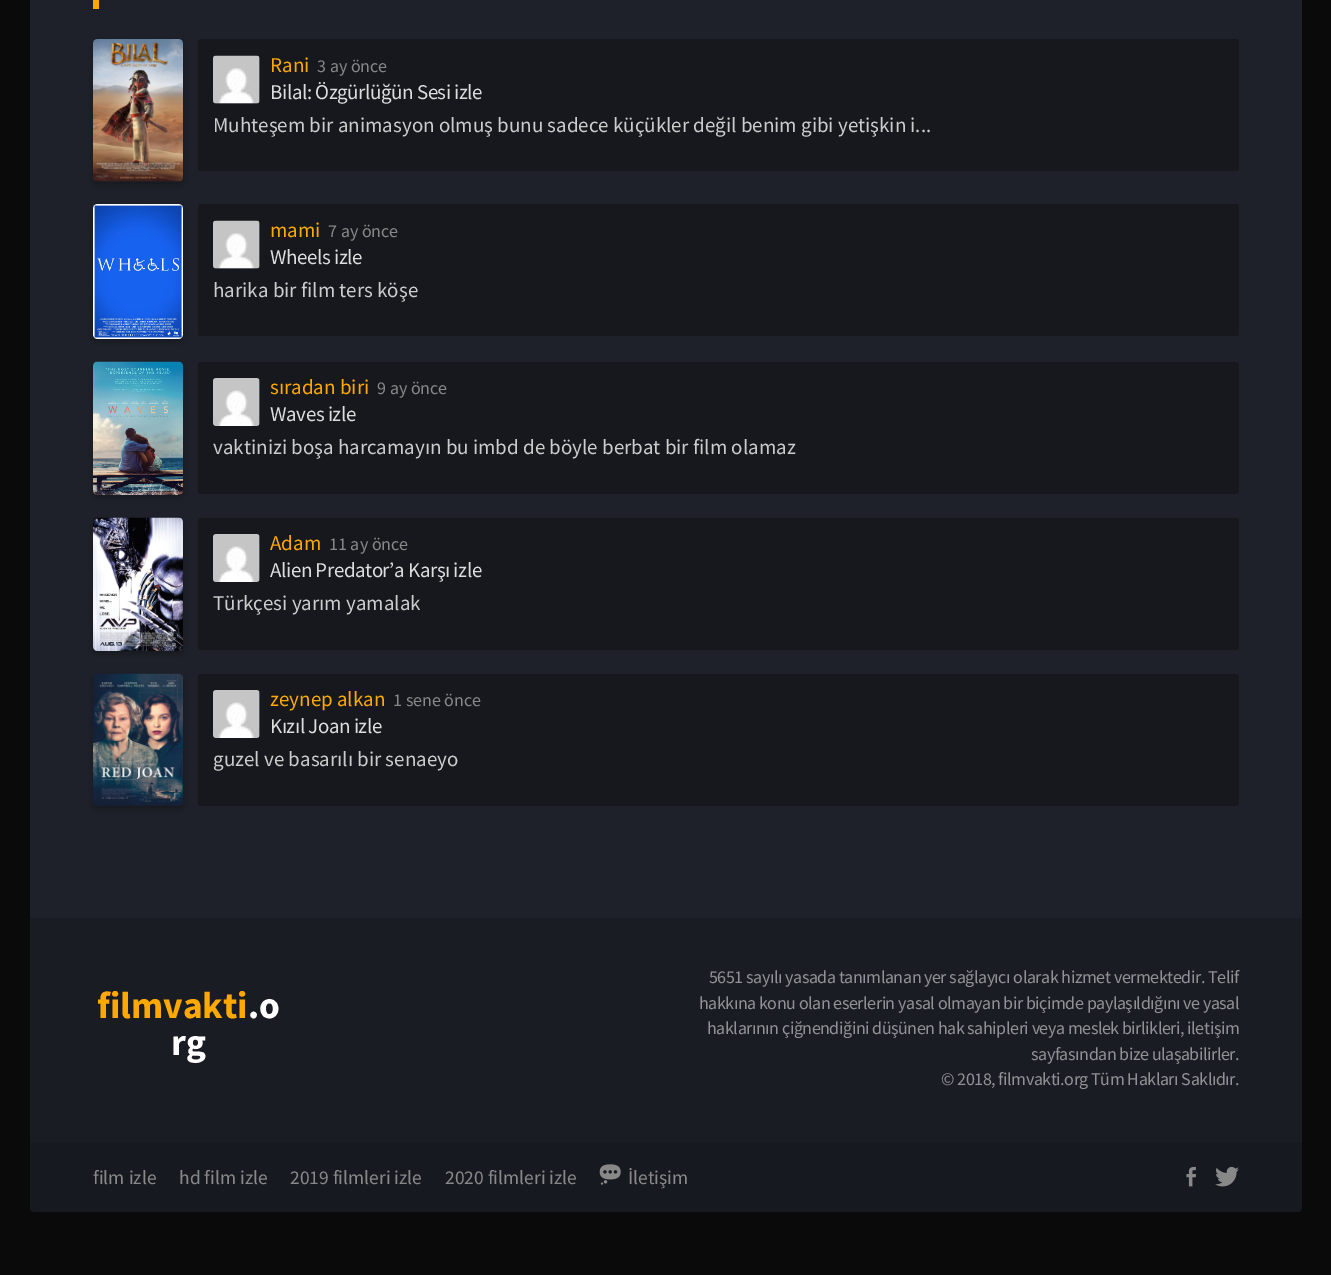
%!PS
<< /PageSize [1331 1275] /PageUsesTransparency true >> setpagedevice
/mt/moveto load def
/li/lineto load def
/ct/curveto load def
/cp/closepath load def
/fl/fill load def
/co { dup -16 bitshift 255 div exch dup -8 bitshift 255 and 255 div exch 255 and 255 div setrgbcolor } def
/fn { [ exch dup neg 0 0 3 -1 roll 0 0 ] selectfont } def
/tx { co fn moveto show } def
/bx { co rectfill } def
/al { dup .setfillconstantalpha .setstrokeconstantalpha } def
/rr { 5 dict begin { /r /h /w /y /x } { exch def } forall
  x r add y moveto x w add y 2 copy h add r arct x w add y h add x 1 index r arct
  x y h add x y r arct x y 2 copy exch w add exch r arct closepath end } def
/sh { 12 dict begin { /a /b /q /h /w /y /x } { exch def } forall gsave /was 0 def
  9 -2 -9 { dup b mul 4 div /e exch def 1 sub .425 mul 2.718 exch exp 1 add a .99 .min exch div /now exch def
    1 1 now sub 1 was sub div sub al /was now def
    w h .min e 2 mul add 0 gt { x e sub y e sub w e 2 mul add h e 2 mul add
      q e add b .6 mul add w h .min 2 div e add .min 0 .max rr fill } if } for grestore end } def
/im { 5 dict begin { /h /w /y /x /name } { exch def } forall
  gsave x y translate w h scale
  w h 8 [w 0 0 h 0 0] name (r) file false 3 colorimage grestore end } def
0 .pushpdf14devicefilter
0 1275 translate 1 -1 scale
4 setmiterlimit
0 0 1331 1275 16#0A0A0A bx
30 0 1272 918 16#1E2129 bx
93 0 6 9 16#FFA900 bx
16#000000 co
93 42 90 143 3 4 .28 sh
(media/1.raw) 93 39 90 143 im
0.27 al
198 39 1041 132 3 rr fl
1 al
16#292C33 co
213 56 47 48 3 rr fl
(media/2.raw) 213 55 47 49 im
16#000000 co
93 207 90 135 3 4 .28 sh
(media/3.raw) 93 204 90 135 im
0.27 al
198 204 1041 132 3 rr fl
1 al
16#292C33 co
213 221 47 48 3 rr fl
(media/4.raw) 213 220 47 49 im
16#000000 co
93 365 90 133 3 4 .28 sh
(media/5.raw) 93 361 90 134 im
0.27 al
198 362 1041 132 3 rr fl
1 al
16#292C33 co
213 378 47 48 3 rr fl
(media/6.raw) 213 378 47 48 im
16#000000 co
93 521 90 133 3 4 .28 sh
(media/7.raw) 93 517 90 134 im
0.27 al
198 518 1041 132 3 rr fl
1 al
16#292C33 co
213 534 47 48 3 rr fl
(media/8.raw) 213 534 47 48 im
16#000000 co
93 677 90 132 3 4 .28 sh
(media/9.raw) 93 673 90 133 im
0.27 al
198 674 1041 132 3 rr fl
1 al
16#292C33 co
213 690 47 48 3 rr fl
(media/10.raw) 213 690 47 48 im
30 918 1272 225 16#1A1C23 bx
16#171920 co
30 1143 mt 1302 1143 li 1302 1207 li 1302 1210 1300 1212 1297 1212 ct 35 1212 li 32 1212 30 1210 30 1207 ct cp fl
(media/11.raw) 599 1164 22 21 im
(media/12.raw) 1186 1166 10 21 im
(media/13.raw) 1215 1166 24 21 im
(Rani) 270 72 /SourceSansPro-Regular 21 16#FFA900 tx
(3 ay önce) 317 72 /SourceSansPro-Regular 18 16#888888 tx
/SourceSansPro-Regular 21 fn
16#DDDDDD co
270 99 mt -.45 0 (Bilal: Özgürlüğün Sesi izle) ashow
(Muhteşem bir animasyon olmuş bunu sadece küçükler değil benim gibi yetişkin i...) 213 132 /SourceSansPro-Regular 21 16#CCCCCC tx
(mami) 270 237 /SourceSansPro-Regular 21 16#FFA900 tx
(7 ay önce) 328 237 /SourceSansPro-Regular 18 16#888888 tx
/SourceSansPro-Regular 21 fn
16#DDDDDD co
270 264 mt -.45 0 (Wheels izle) ashow
(harika bir film ters köşe) 213 297 /SourceSansPro-Regular 21 16#CCCCCC tx
(sıradan biri) 270 394 /SourceSansPro-Regular 21 16#FFA900 tx
(9 ay önce) 377 394 /SourceSansPro-Regular 18 16#888888 tx
/SourceSansPro-Regular 21 fn
16#DDDDDD co
270 421 mt -.45 0 (Waves izle) ashow
(vaktinizi boşa harcamayın bu imbd de böyle berbat bir film olamaz) 213 454 /SourceSansPro-Regular 21 16#CCCCCC tx
(Adam) 270 550 /SourceSansPro-Regular 21 16#FFA900 tx
(11 ay önce) 329 550 /SourceSansPro-Regular 18 16#888888 tx
/SourceSansPro-Regular 21 fn
16#DDDDDD co
270 577 mt -.45 0 (Alien Predator’a Karşı izle) ashow
(Türkçesi yarım yamalak) 213 610 /SourceSansPro-Regular 21 16#CCCCCC tx
(zeynep alkan) 270 706 /SourceSansPro-Regular 21 16#FFA900 tx
(1 sene önce) 393 706 /SourceSansPro-Regular 18 16#888888 tx
/SourceSansPro-Regular 21 fn
16#DDDDDD co
270 733 mt -.45 0 (Kızıl Joan izle) ashow
(guzel ve basarılı bir senaeyo) 213 766 /SourceSansPro-Regular 21 16#CCCCCC tx
(filmvakti) 97 1018 /SourceSansPro-Bold 37.5 16#FFA900 tx
(.o) 248 1018 /SourceSansPro-Bold 37.5 16#FFFFFF tx
(rg) 171 1055 /SourceSansPro-Bold 37.5 16#FFFFFF tx
/SourceSansPro-Regular 18 fn
16#919295 co
709 983 mt -.45 0 (5651 sayılı yasada tanımlanan yer sağlayıcı olarak hizmet vermektedir. Telif) ashow
699 1009 mt -.45 0 (hakkına konu olan eserlerin yasal olmayan bir biçimde paylaşıldığını ve yasal) ashow
707 1034 mt -.45 0 (haklarının çiğnendiğini düşünen hak sahipleri veya meslek birlikleri, iletişim) ashow
1031 1060 mt -.45 0 (sayfasından bize ulaşabilirler.) ashow
941 1085 mt -.45 0 (© 2018, filmvakti.org Tüm Hakları Saklıdır.) ashow
(film izle) 93 1184 /SourceSansPro-Regular 19.5 16#888888 tx
(hd film izle) 179 1184 /SourceSansPro-Regular 19.5 16#888888 tx
(2019 filmleri izle) 290 1184 /SourceSansPro-Regular 19.5 16#888888 tx
(2020 filmleri izle) 445 1184 /SourceSansPro-Regular 19.5 16#888888 tx
(İletişim) 628 1184 /SourceSansPro-Regular 19.5 16#888888 tx
.poppdf14devicefilter showpage
